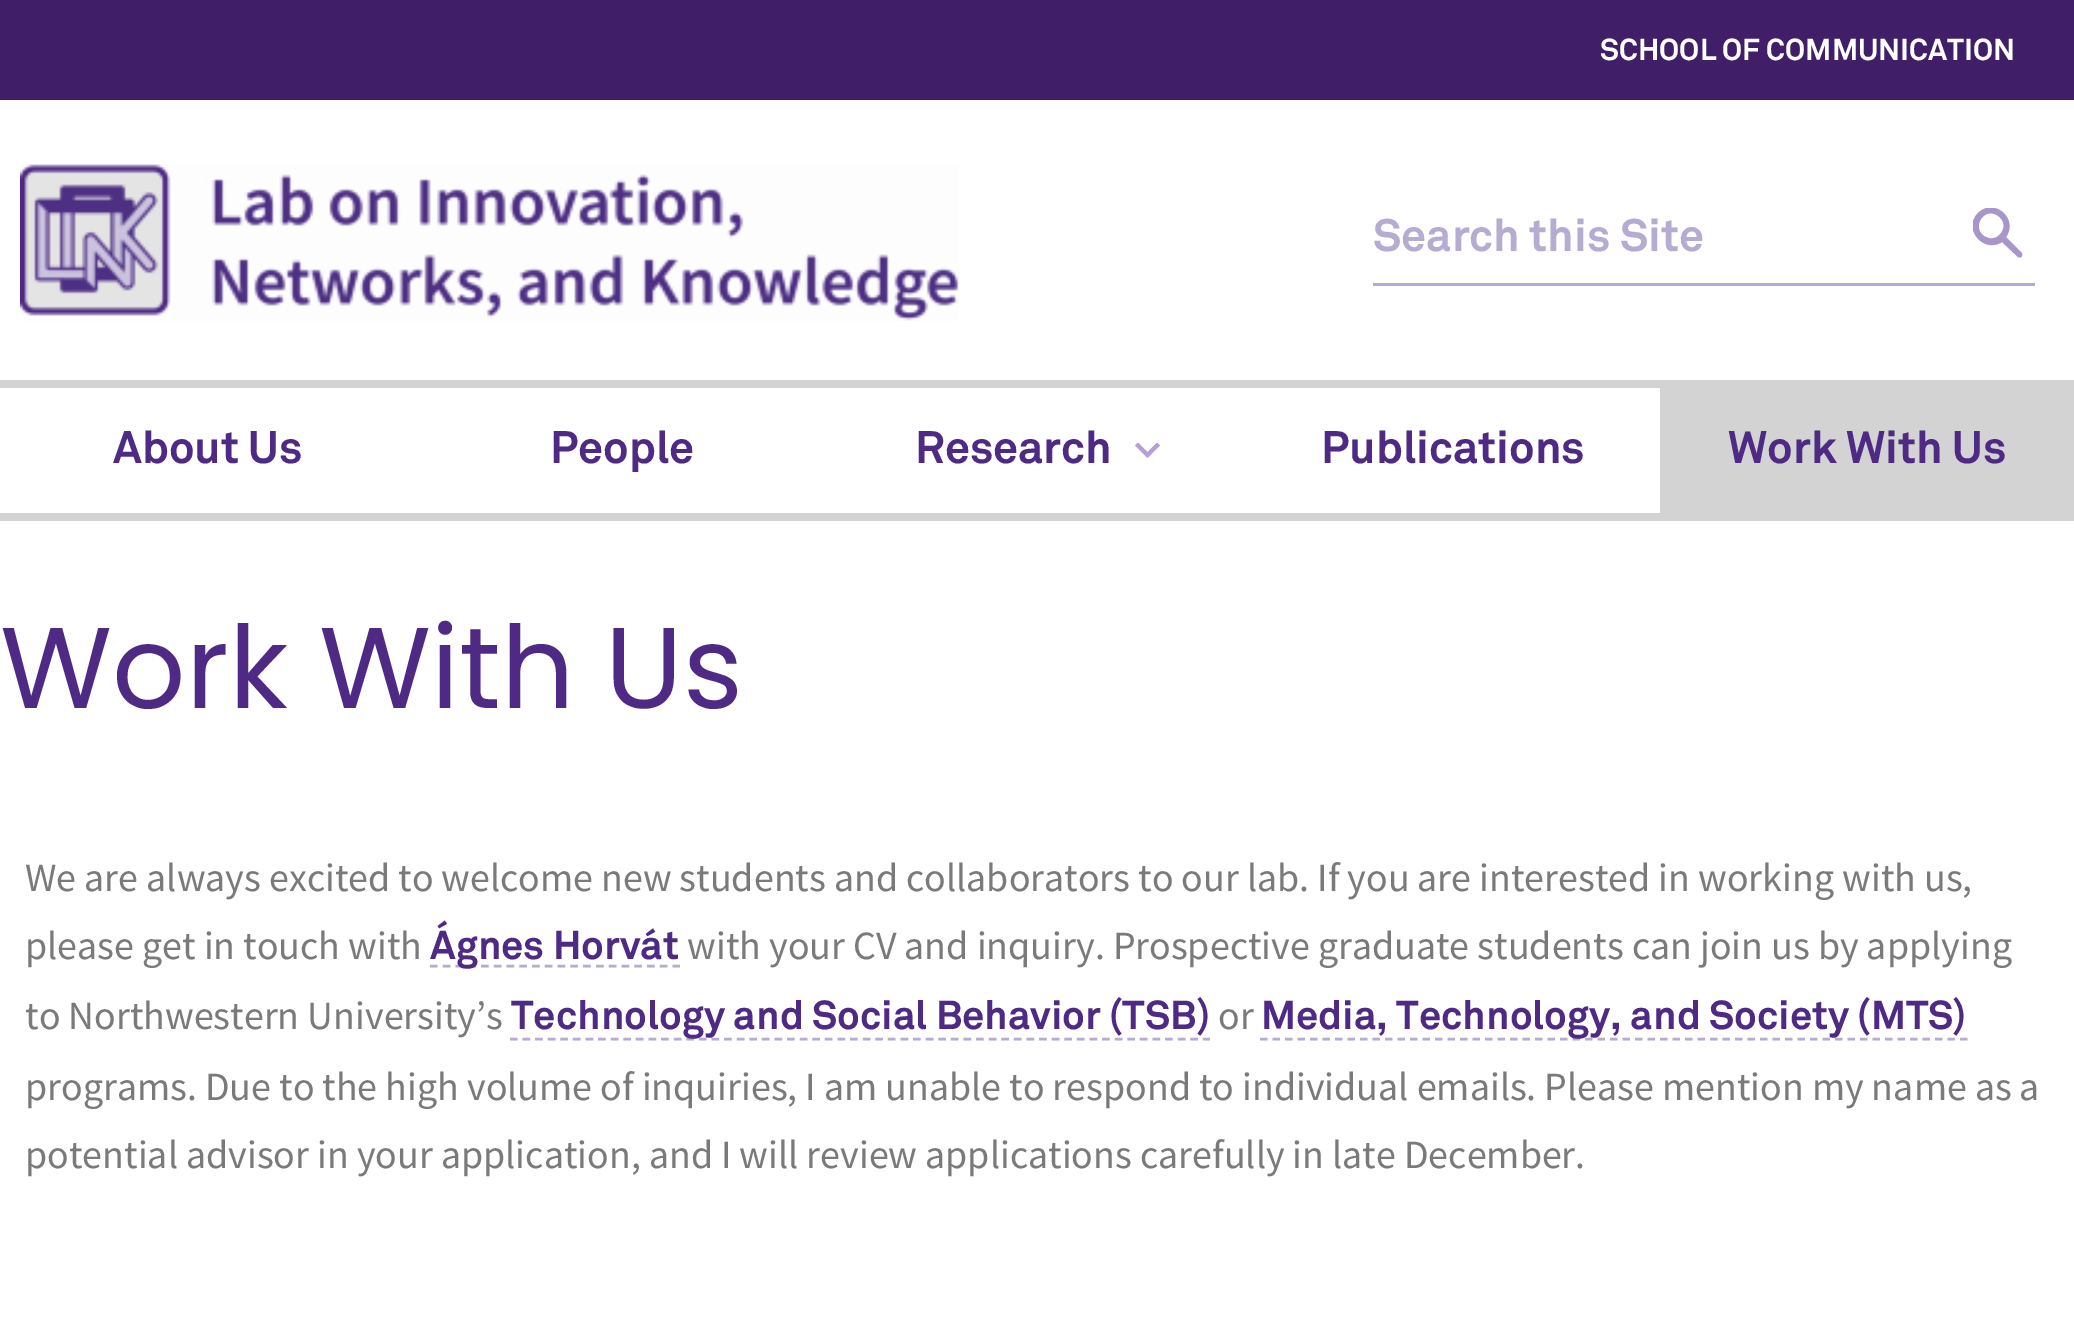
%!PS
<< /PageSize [2074 1329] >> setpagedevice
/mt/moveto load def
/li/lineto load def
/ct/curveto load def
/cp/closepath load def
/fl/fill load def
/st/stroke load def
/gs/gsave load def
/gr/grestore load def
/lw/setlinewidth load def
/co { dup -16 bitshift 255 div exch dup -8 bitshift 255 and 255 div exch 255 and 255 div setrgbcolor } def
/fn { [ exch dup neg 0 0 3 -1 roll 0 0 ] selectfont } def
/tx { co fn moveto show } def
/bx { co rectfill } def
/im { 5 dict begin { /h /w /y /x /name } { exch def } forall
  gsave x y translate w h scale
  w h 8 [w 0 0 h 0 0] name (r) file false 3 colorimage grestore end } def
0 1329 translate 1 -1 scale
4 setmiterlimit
0 0 2074 1329 16#FFFFFF bx
0 0 2074 100 16#401F68 bx
(media/1.raw) 20 164 939 157 im
1373 283 662 3 16#B6ACD1 bx
gs
1973 208 50 50 rectclip
16#A696C9 co
2021 252 mt 2006 237 li 2019 219 1994 197 1978 213 ct 1962 229 1984 254 2002 242 ct 2018 257 li 2021 259 2024 255 2021 252 ct cp 2001 233 mt 1992 246 1972 233 1981 219 ct 1990 205 2011 220 2001 233 ct cp fl
gr
0 380 2074 8 16#D3D3D3 bx
0 513 2074 8 16#D3D3D3 bx
gs
1135 443 25 15 rectclip
16#B69FD5 co
1138 442.5 mt 1147.5 452 li 1157 442.5 li 1160 445.5 li 1147.5 458 li 1135 445.5 li cp fl
gr
1660 388 414 125 16#D3D3D3 bx
16#B6ACD1 co
2.5 lw
[7.5 5.27] 0 setdash
430 966 mt 680 966 li st
[7.5 5.1] 0 setdash
510 1039 mt 1210 1039 li st
[7.5 5] 0 setdash
1260 1039 mt 1967.5 1039 li st
(SCHOOL OF COMMUNICATION) 1600 60 /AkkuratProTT-Bold 30 16#FFFFFF tx
(Search this Site) 1373 251 /AkkuratProTT-Bold 45 16#B6ACD1 tx
(About Us) 113 463 /AkkuratProTT-Bold 45 16#4E2A84 tx
(People) 550 463 /AkkuratProTT-Bold 45 16#4E2A84 tx
(Research) 915 463 /AkkuratProTT-Bold 45 16#4E2A84 tx
(Publications) 1321 463 /AkkuratProTT-Bold 45 16#4E2A84 tx
(Work With Us) 1728 463 /AkkuratProTT-Bold 45 16#4E2A84 tx
(Work With Us) 0 708 /Poppins-Regular 115 16#4E2A84 tx
(We are always excited to welcome new students and collaborators to our lab. If you are interested in working with us,) 25 891 /SourceSansPro-Regular 40 16#7A7A7A tx
(please get in touch with) 25 959 /SourceSansPro-Regular 40 16#7A7A7A tx
(Ágnes Horvát) 430 959 /AkkuratProTT-Bold 40 16#4E2A84 tx
(with your CV and inquiry. Prospective graduate students can join us by applying) 687 959 /SourceSansPro-Regular 40 16#7A7A7A tx
(to Northwestern University’s) 25 1029 /SourceSansPro-Regular 40 16#7A7A7A tx
(Technology and Social Behavior \(TSB\)) 511 1029 /AkkuratProTT-Bold 40 16#4E2A84 tx
(or) 1218 1029 /SourceSansPro-Regular 40 16#7A7A7A tx
(Media, Technology, and Society \(MTS\)) 1261 1029 /AkkuratProTT-Bold 40 16#4E2A84 tx
(programs. Due to the high volume of inquiries, I am unable to respond to individual emails. Please mention my name as a) 25 1100 /SourceSansPro-Regular 40 16#7A7A7A tx
(potential advisor in your application, and I will review applications carefully in late December.) 25 1168 /SourceSansPro-Regular 40 16#7A7A7A tx
showpage
